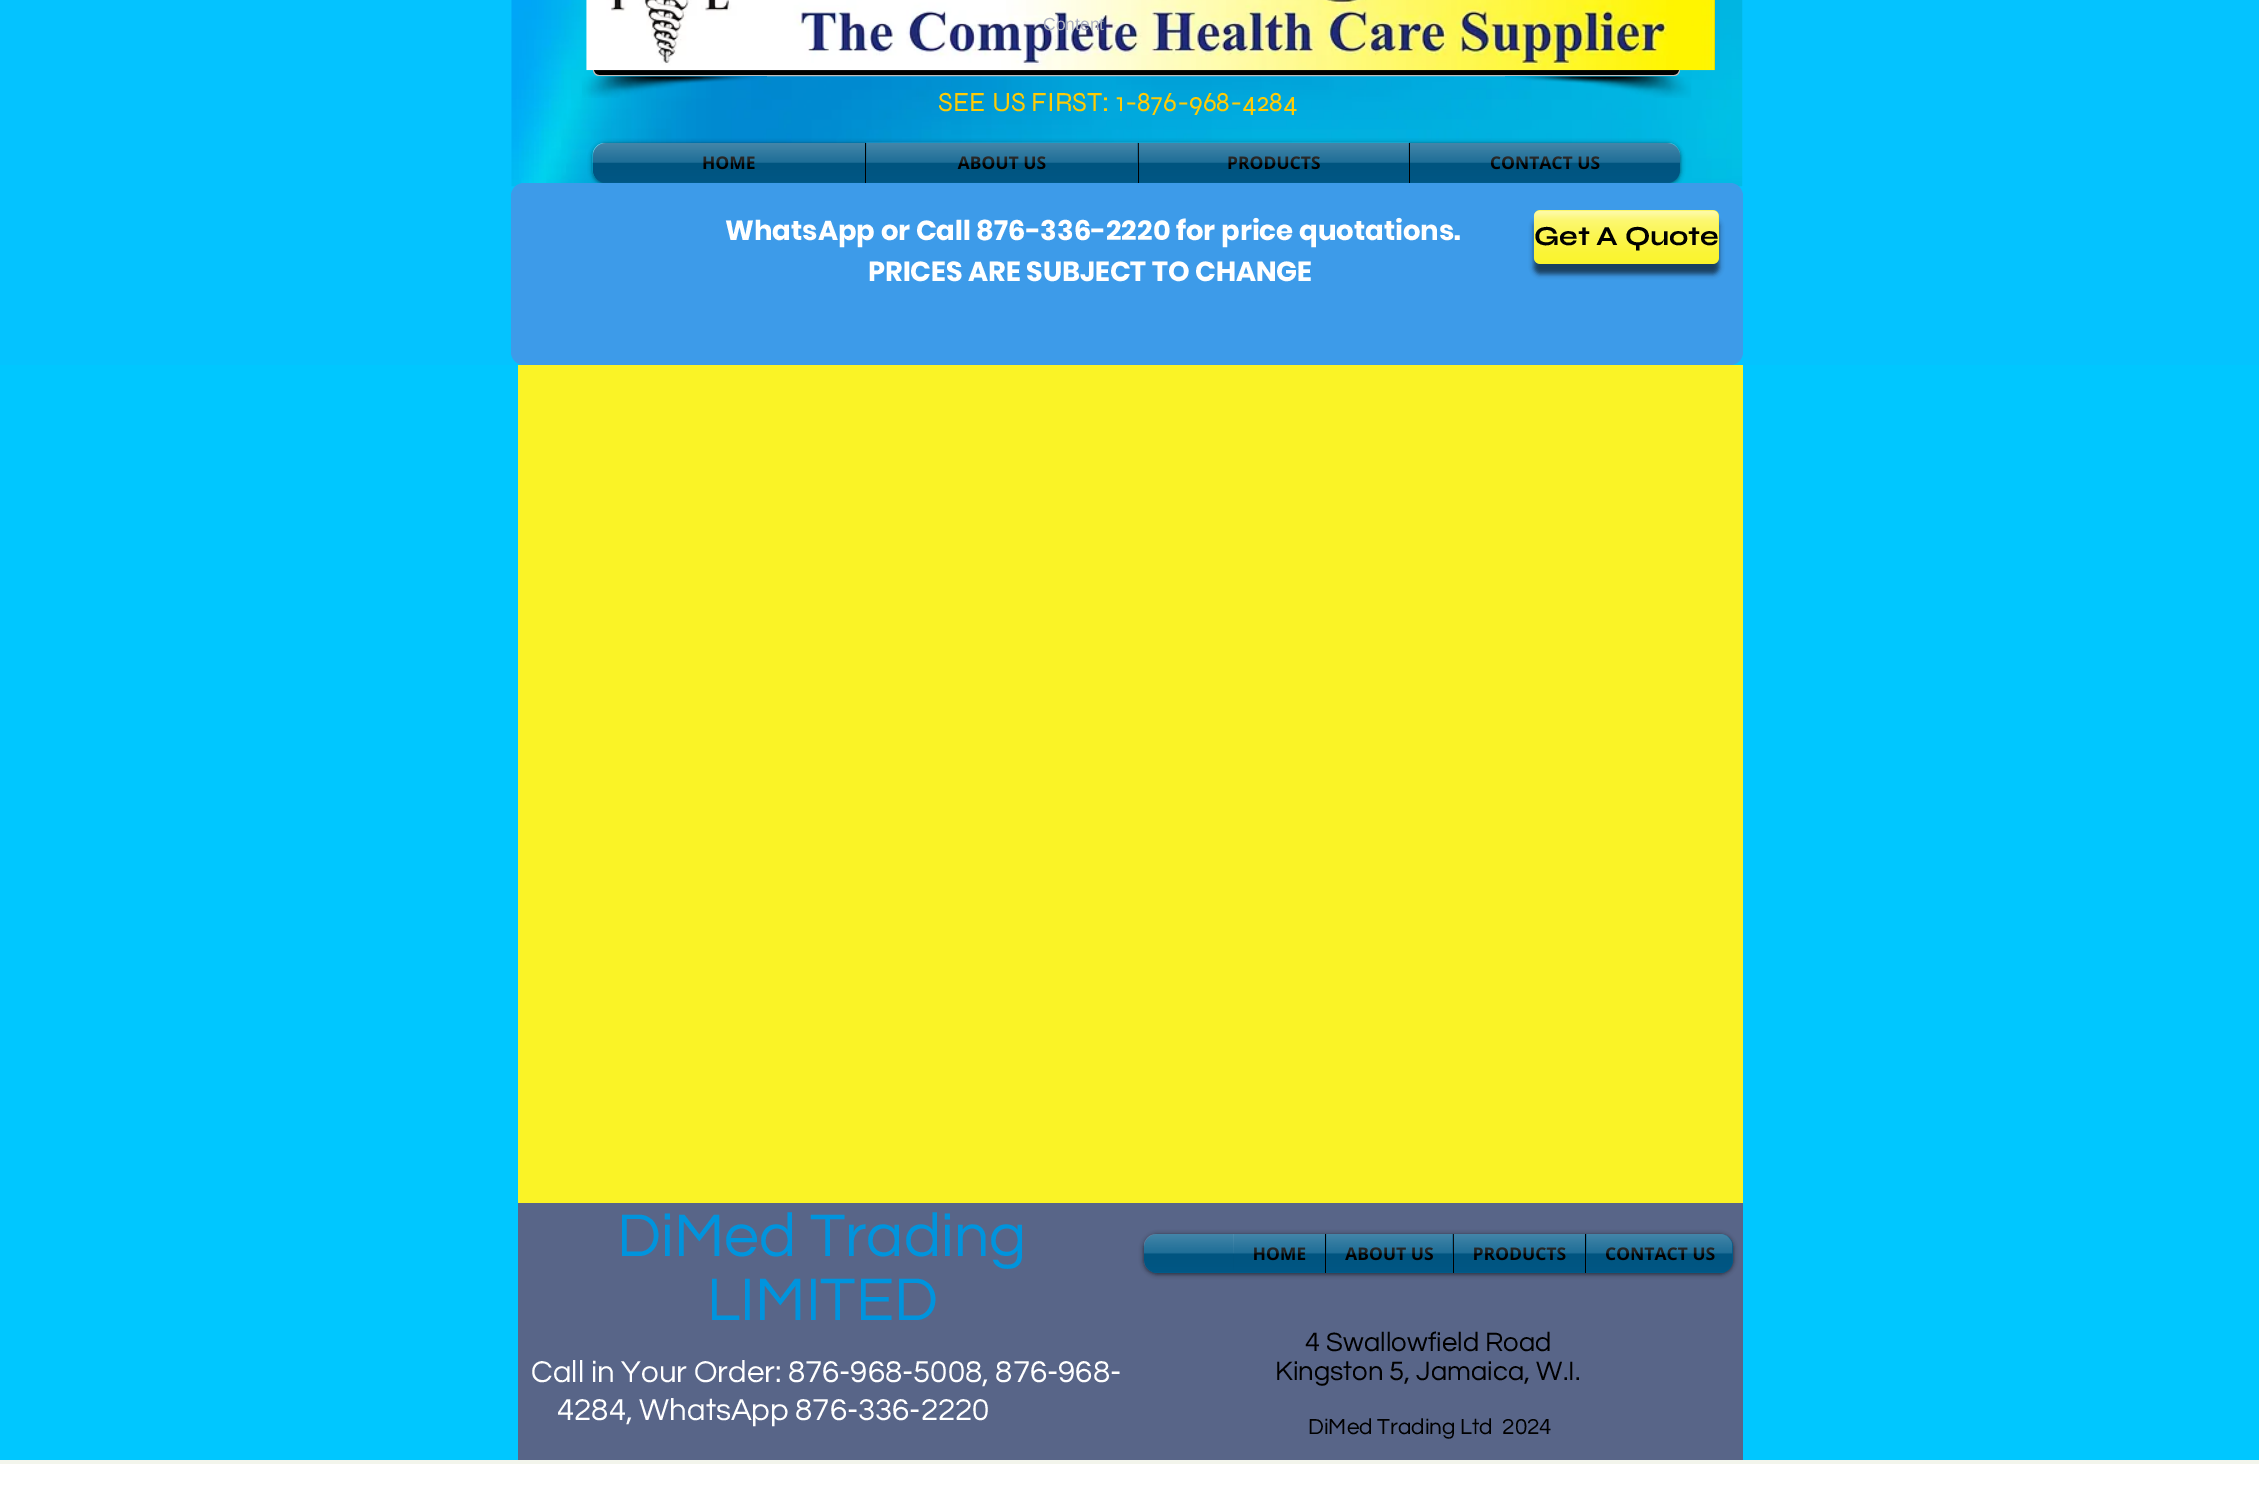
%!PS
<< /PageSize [2259 1486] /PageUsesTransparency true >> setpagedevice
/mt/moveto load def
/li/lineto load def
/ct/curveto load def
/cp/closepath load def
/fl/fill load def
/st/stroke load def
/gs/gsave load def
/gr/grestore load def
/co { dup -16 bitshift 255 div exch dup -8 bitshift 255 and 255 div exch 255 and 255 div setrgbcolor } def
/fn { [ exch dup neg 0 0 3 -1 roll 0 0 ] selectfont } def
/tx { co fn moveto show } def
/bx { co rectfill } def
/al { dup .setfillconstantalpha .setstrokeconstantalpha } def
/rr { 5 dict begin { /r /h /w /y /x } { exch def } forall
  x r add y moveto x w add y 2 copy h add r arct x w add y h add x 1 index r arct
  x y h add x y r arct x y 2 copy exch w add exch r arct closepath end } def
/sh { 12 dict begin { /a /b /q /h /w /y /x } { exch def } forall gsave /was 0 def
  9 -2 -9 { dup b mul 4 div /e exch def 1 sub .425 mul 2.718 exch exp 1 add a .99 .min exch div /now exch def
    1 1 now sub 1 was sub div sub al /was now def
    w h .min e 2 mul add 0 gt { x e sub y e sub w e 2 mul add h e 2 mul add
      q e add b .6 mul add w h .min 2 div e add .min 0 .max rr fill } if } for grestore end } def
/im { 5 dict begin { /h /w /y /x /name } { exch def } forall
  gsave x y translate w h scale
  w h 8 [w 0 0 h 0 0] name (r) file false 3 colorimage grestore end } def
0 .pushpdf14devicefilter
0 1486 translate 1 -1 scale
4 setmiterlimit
0 0 2259 1486 16#FFFFFF bx
0 0 2259 365 16#04C3FF bx
(media/4.raw) 511 0 1232 187 im
16#000000 co
593.5 -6.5 1086 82 5.5 rr gs fl gr
16#BFBFBF co
st
(media/1.raw) 586 0 1129 71 im
(media/2.raw) 582 76 185 22 im
(media/3.raw) 1505 76 186 22 im
16#000000 co
593 144 1087 40 13 2.5 .6 sh
(media/5.raw) 592 143 1088 39 im
16#005A89 co
606 143 mt 865 143 li 865 183 li 606 183 li 599 183 593 177 593 170 ct 593 156 li 593 149 599 143 606 143 ct cp fl
866 143 272 40 16#005A89 bx
865 143 1 40 16#000000 bx
1139 143 270 40 16#005A89 bx
1138 143 1 40 16#000000 bx
16#005A89 co
1409 143 mt 1667 143 li 1674 143 1680 149 1680 156 ct 1680 170 li 1680 177 1674 183 1667 183 ct 1409 183 li cp fl
1409 143 1 40 16#000000 bx
16#3D9BE9 co
511 183 1232 182 13 rr fl
16#000000 co
1534 220 185 54 6 2.5 .6 sh
16#FAF326 co
1534 210 185 54 6 rr fl
(media/10.raw) 1533 210 186 54 im
0 365 2259 1095 16#00C7FF bx
518 365 1225 838 16#FAF326 bx
518 1203 1225 257 16#586588 bx
16#000000 co
1144 1235 589 39 13 2.5 .6 sh
16#005A89 co
1144 1234 589 39 13 rr fl
(media/11.raw) 1144 1234 589 38 im
1234 1234 91 38 16#005A89 bx
1326 1234 127 38 16#005A89 bx
1325 1234 1 39 16#000000 bx
1454 1234 131 38 16#005A89 bx
1453 1234 1 39 16#000000 bx
16#005A89 co
1585 1234 mt 1720 1234 li 1727 1234 1733 1240 1733 1247 ct 1733 1260 li 1733 1267 1727 1273 1720 1273 ct 1585 1273 li cp fl
1585 1234 1 39 16#000000 bx
0 1460 2259 4 16#F3F5EC bx
(Content) 1043 30 /LiberationSans-Regular 17.5 16#ADB1BF tx
(SEE US FIRST: 1-876-968-4284) 938 111 /Syne-Regular 27.5 16#FFCB05 tx
(HOME) 702 169 /OpenSans-Bold 17.5 16#000000 tx
(media/6.raw) 592 143 273 39 im
(ABOUT US) 958 169 /OpenSans-Bold 17.5 16#000000 tx
(media/7.raw) 866 142 272 40 im
(PRODUCTS) 1227 169 /OpenSans-Bold 17.5 16#000000 tx
(media/8.raw) 1138 142 271 40 im
(CONTACT US) 1490 169 /OpenSans-Bold 17.5 16#000000 tx
(media/9.raw) 1410 143 270 39 im
(WhatsApp or Call 876-336-2220 for price quotations.) 725 240 /Poppins-Bold 27.5 16#FFFFFF tx
(PRICES ARE SUBJECT TO CHANGE) 868 281 /Poppins-Bold 27.5 16#FFFFFF tx
(Get A Quote) 1534 245 /Syne-Bold 27.5 16#000000 tx
(DiMed Trading) 617 1256 /Questrial-Regular 62.5 16#0094DD tx
(LIMITED) 707 1320 /Questrial-Regular 62.5 16#0094DD tx
(Call in Your Order: 876-968-5008, 876-968-) 531 1382 /Questrial-Regular 31.25 16#FFFFFF tx
(4284, WhatsApp 876-336-2220) 557 1420 /Questrial-Regular 31.25 16#FFFFFF tx
(HOME) 1253 1260 /OpenSans-Bold 17.5 16#000000 tx
(media/12.raw) 1233 1234 92 38 im
(ABOUT US) 1345 1260 /OpenSans-Bold 17.5 16#000000 tx
(media/13.raw) 1326 1234 127 38 im
(PRODUCTS) 1473 1260 /OpenSans-Bold 17.5 16#000000 tx
(media/14.raw) 1453 1234 132 38 im
(CONTACT US) 1605 1260 /OpenSans-Bold 17.5 16#000000 tx
(media/15.raw) 1586 1234 147 38 im
(4 Swallowfield Road) 1305 1351 /Questrial-Regular 27.5 16#000000 tx
(Kingston 5, Jamaica, W.I.) 1275 1380 /Questrial-Regular 27.5 16#000000 tx
(DiMed Trading Ltd  2024) 1308 1434 /Questrial-Regular 22.5 16#000000 tx
.poppdf14devicefilter showpage
